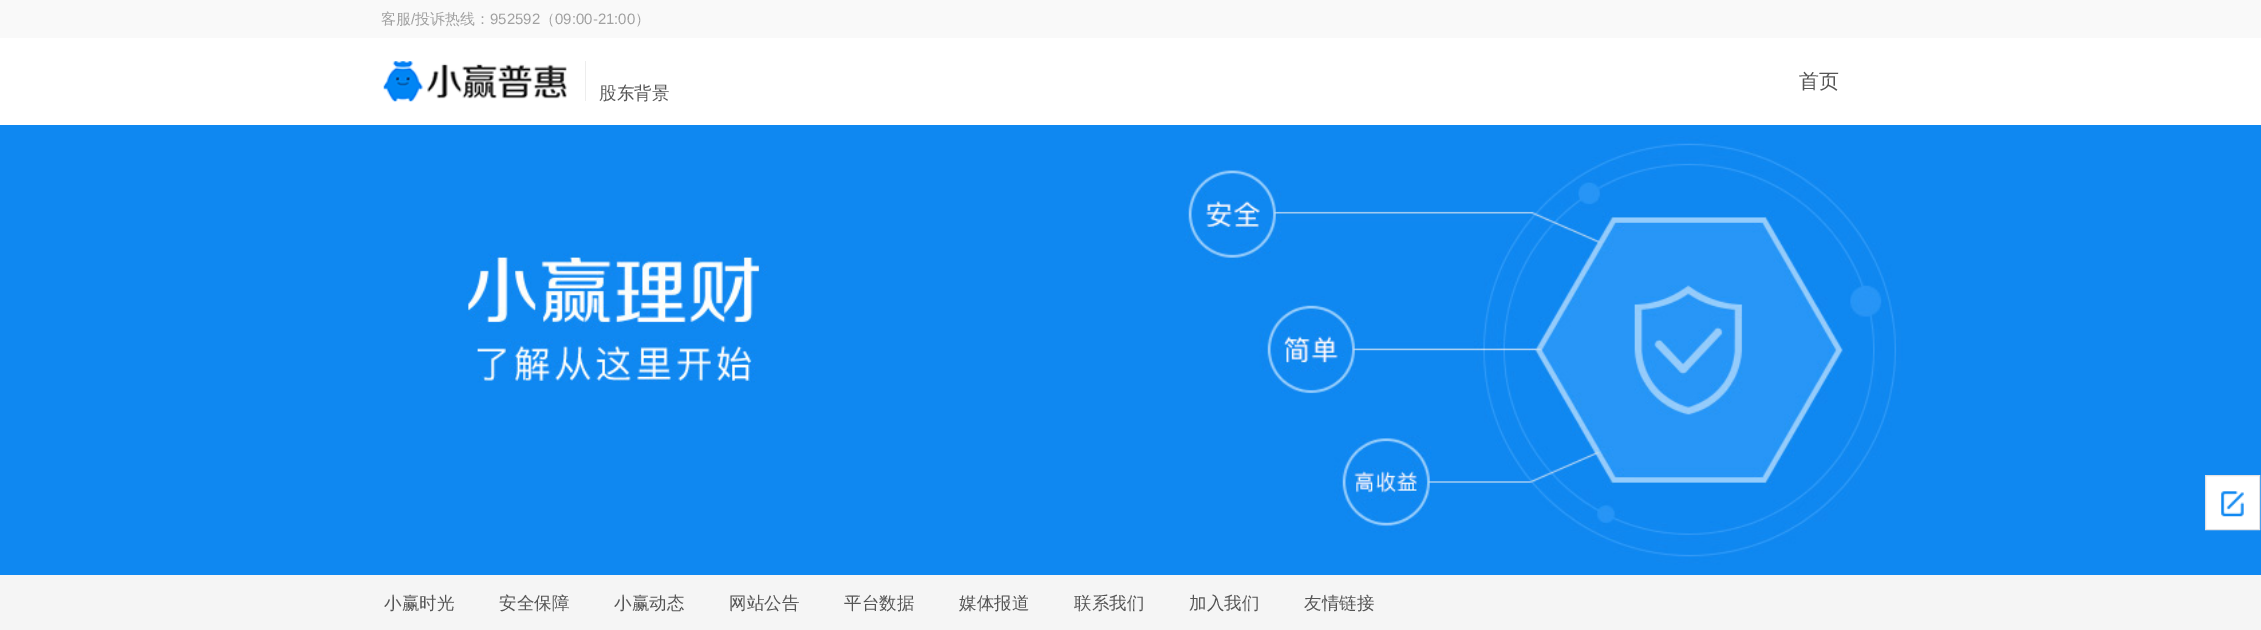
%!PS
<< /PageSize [2261 630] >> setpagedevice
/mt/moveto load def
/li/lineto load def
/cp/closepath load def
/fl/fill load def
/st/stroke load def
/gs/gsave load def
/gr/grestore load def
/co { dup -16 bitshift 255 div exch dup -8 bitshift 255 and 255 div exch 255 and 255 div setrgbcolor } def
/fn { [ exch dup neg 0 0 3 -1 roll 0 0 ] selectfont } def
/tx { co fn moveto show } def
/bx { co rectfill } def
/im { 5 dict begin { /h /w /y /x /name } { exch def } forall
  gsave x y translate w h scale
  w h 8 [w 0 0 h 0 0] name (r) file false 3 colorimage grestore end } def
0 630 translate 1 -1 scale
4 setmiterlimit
0 0 2261 630 16#F5F5F5 bx
0 0 2261 38 16#F9F9F9 bx
0 38 2261 87 16#FFFFFF bx
(media/1.raw) 383 61 184 41 im
585 61 1 40 16#EDEDED bx
(media/2.raw) 0 125 2261 450 im
16#FFFFFF co
2205.5 475.5 mt 2259.5 475.5 li 2259.5 529.5 li 2205.5 529.5 li cp gs fl gr
16#E2E2E4 co
st
(media/3.raw) 2221 491 23 26 im
(客服) 381 24 /WenQuanYiZenHei-Medium 15 16#A1A1A1 tx
(/) 411 24 /LiberationSans-Regular 15 16#A1A1A1 tx
(投诉热线：) 415 24 /WenQuanYiZenHei-Medium 15 16#A1A1A1 tx
(952592) 490 24 /LiberationSans-Regular 15 16#A1A1A1 tx
(（) 540 24 /WenQuanYiZenHei-Medium 15 16#A1A1A1 tx
(09:00-21:00) 555 24 /LiberationSans-Regular 15 16#A1A1A1 tx
(）) 635 24 /WenQuanYiZenHei-Medium 15 16#A1A1A1 tx
(首页) 1799 88 /WenQuanYiZenHei-Medium 20 16#555555 tx
(股东背景) 599 99 /WenQuanYiZenHei-Medium 17.5 16#555555 tx
(小赢时光) 384 609 /WenQuanYiZenHei-Medium 17.5 16#555555 tx
(安全保障) 499 609 /WenQuanYiZenHei-Medium 17.5 16#555555 tx
(小赢动态) 614 609 /WenQuanYiZenHei-Medium 17.5 16#555555 tx
(网站公告) 729 609 /WenQuanYiZenHei-Medium 17.5 16#555555 tx
(平台数据) 844 609 /WenQuanYiZenHei-Medium 17.5 16#555555 tx
(媒体报道) 959 609 /WenQuanYiZenHei-Medium 17.5 16#555555 tx
(联系我们) 1074 609 /WenQuanYiZenHei-Medium 17.5 16#555555 tx
(加入我们) 1189 609 /WenQuanYiZenHei-Medium 17.5 16#555555 tx
(友情链接) 1304 609 /WenQuanYiZenHei-Medium 17.5 16#555555 tx
showpage
